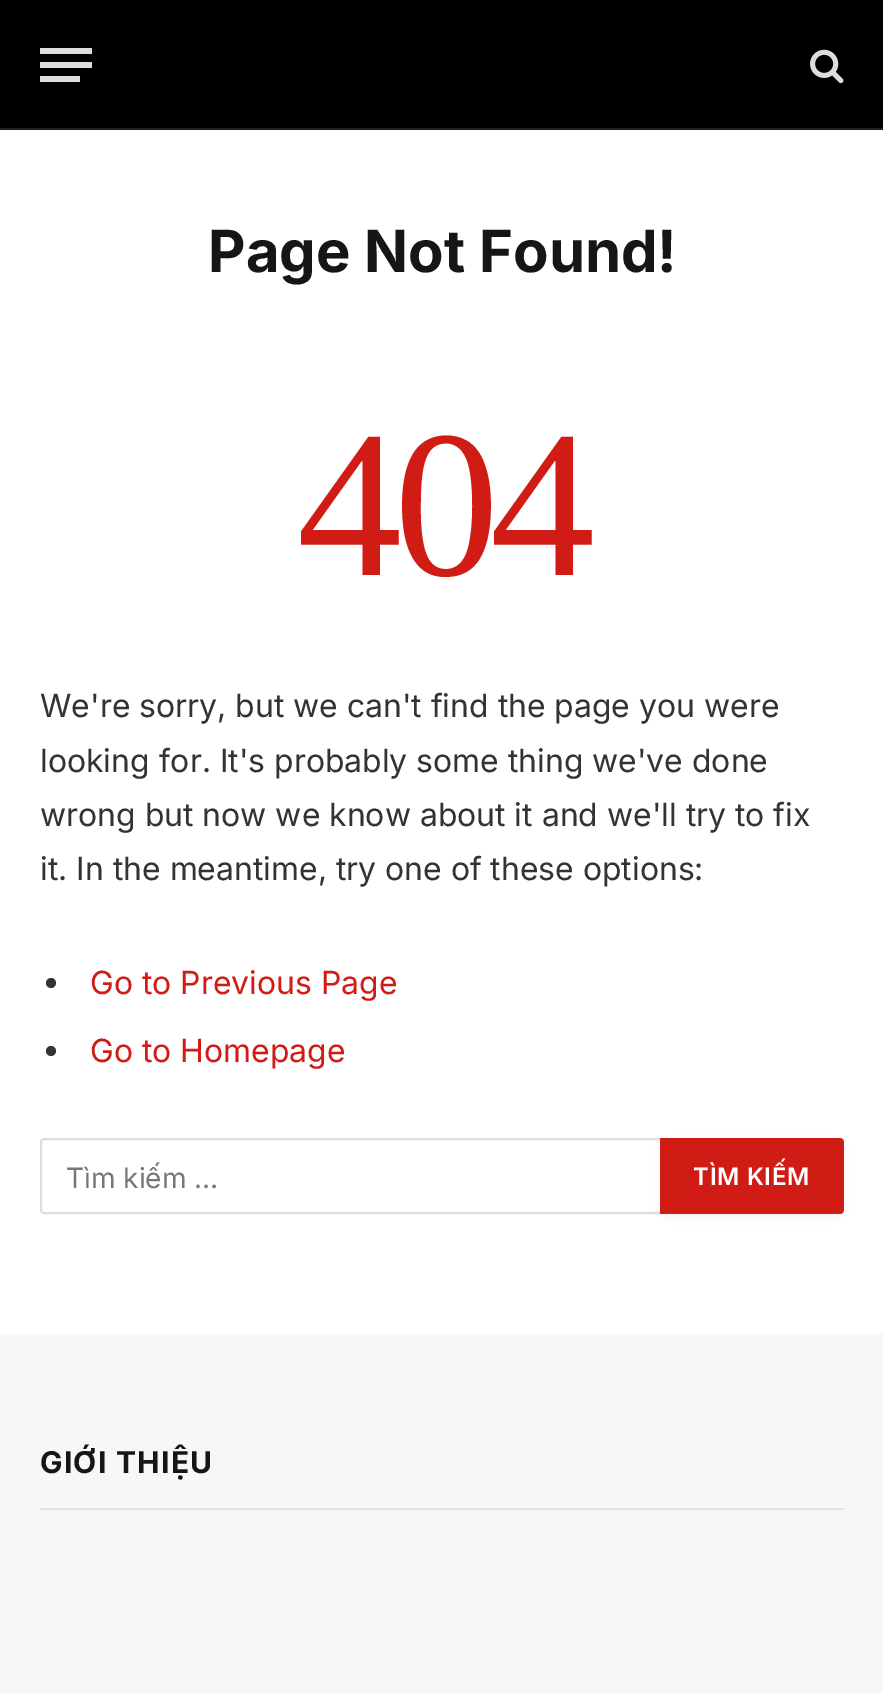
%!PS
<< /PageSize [883 1693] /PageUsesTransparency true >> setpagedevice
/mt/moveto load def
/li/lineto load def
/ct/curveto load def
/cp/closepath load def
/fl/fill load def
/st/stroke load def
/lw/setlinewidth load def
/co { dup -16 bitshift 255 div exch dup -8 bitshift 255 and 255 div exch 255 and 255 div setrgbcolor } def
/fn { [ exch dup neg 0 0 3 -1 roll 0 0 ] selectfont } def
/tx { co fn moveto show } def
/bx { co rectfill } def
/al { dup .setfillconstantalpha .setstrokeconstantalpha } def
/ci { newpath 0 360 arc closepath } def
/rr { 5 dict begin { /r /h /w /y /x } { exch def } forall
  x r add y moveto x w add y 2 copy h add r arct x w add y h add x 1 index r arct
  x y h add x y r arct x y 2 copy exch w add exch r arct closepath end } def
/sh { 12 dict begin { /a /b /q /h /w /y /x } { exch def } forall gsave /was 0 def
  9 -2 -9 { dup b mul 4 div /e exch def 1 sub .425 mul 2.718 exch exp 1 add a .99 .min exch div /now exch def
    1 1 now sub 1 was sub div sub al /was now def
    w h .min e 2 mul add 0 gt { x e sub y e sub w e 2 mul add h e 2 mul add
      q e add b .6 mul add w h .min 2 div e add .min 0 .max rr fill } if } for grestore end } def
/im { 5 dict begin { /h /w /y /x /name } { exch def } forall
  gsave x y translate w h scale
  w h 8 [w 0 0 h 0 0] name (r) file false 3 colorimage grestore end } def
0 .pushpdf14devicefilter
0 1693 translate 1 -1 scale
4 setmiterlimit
0 0 883 1693 16#FFFFFF bx
0 0 883 128 16#000000 bx
0 128 883 2 16#222222 bx
40 76 40 6 16#DDDDDD bx
40 48 52 6 16#DDDDDD bx
40 62 52 6 16#DDDDDD bx
(media/1.raw) 810 49 34 35 im
16#333333 co
51 983 5 ci fl
51 1051 5 ci fl
16#DDDDDD co
2 lw
41 1139 622 74 3 rr st
16#000000 co
668 1150 168 60 0 7 .16 sh
16#D01C14 co
660 1138 mt 840 1138 li 842 1138 844 1140 844 1142 ct 844 1210 li 844 1212 842 1214 840 1214 ct 660 1214 li cp fl
0 1334 883 359 16#F7F7F7 bx
40 1508 804 2 16#E2E2E2 bx
(Page Not Found!) 208 272 /Inter-Bold 58 16#161616 tx
/LiberationSerif-Regular 210 fn
16#D01C14 co
297 575 mt -8.5 0 (404) ashow
(We're sorry, but we can't find the page you were) 40 717 /Inter-Regular 31.9 16#333333 tx
(looking for. It's probably some thing we've done) 40 772 /Inter-Regular 31.9 16#333333 tx
(wrong but now we know about it and we'll try to fix) 40 826 /Inter-Regular 31.9 16#333333 tx
(it. In the meantime, try one of these options:) 40 880 /Inter-Regular 31.9 16#333333 tx
(Go to Previous Page) 90 994 /Inter-Regular 31.9 16#D01C14 tx
(Go to Homepage) 90 1062 /Inter-Regular 31.9 16#D01C14 tx
(Tìm kiếm …) 66 1188 /Inter-Regular 28 16#777777 tx
/Inter-SemiBold 24 fn
16#FFFFFF co
693 1185 mt .75 0 (TÌM KIẾM) ashow
/Inter-Bold 30 fn
16#161616 co
40 1473 mt 1.25 0 (GIỚI THIỆU) ashow
.poppdf14devicefilter showpage
